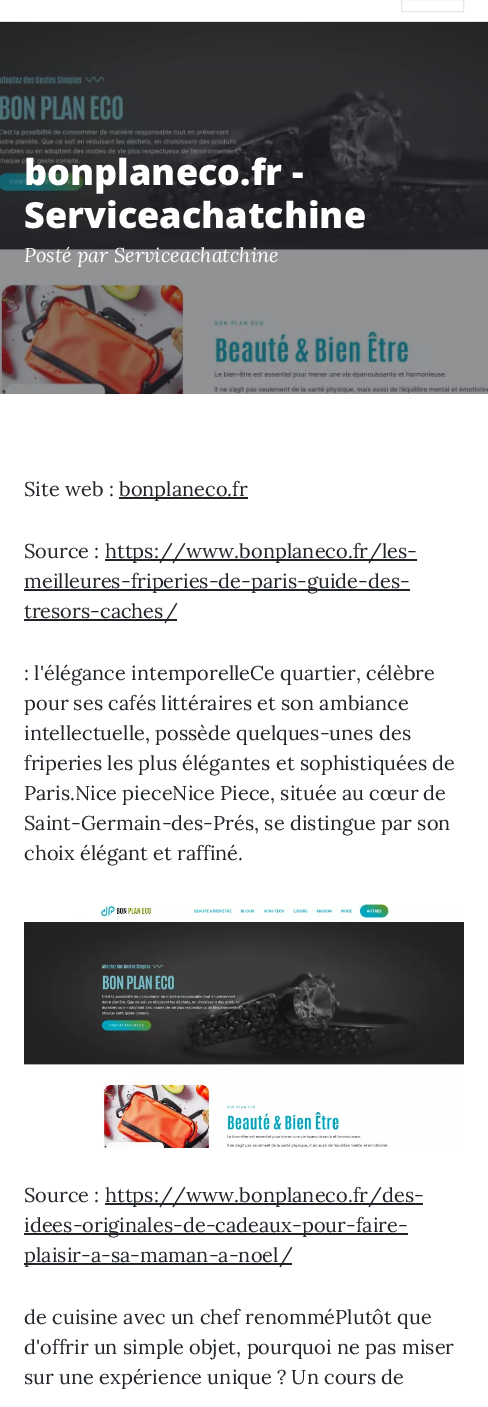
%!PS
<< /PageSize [488 1407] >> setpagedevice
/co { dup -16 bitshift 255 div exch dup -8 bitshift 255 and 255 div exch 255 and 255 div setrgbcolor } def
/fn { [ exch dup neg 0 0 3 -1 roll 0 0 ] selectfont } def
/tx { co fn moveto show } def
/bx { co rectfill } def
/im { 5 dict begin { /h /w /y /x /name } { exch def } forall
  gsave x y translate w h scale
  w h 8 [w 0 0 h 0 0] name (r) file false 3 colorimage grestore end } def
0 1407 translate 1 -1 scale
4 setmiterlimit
0 0 488 1407 16#FFFFFF bx
0 21 488 1 16#DEE2E6 bx
16#E6E6E6 co
401.5 -.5 62 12 rectstroke
(media/1.raw) 0 22 488 372 im
119 497 129 2 16#212529 bx
105 559 312 2 16#212529 bx
24 589 386 2 16#212529 bx
24 619 153 2 16#212529 bx
(media/2.raw) 24 904 440 244 im
105 1203 318 2 16#212529 bx
24 1233 384 2 16#212529 bx
24 1263 268 2 16#212529 bx
(bonplaneco.fr -) 24 185 /OpenSans-ExtraBold 36 16#FFFFFF tx
(Serviceachatchine) 24 228 /OpenSans-ExtraBold 36 16#FFFFFF tx
(Posté par Serviceachatchine) 24 262 /Lora-Italic 20 16#FFFFFF tx
(Site web :) 24 496 /Lora-Regular 20 16#212529 tx
(bonplaneco.fr) 119 496 /Lora-Regular 20 16#212529 tx
(Source :) 24 558 /Lora-Regular 20 16#212529 tx
(https://www.bonplaneco.fr/les-) 105 558 /Lora-Regular 20 16#212529 tx
(meilleures-friperies-de-paris-guide-des-) 24 588 /Lora-Regular 20 16#212529 tx
(tresors-caches/) 24 618 /Lora-Regular 20 16#212529 tx
(: l'élégance intemporelleCe quartier, célèbre) 24 680 /Lora-Regular 20 16#212529 tx
(pour ses cafés littéraires et son ambiance) 24 710 /Lora-Regular 20 16#212529 tx
(intellectuelle, possède quelques-unes des) 24 740 /Lora-Regular 20 16#212529 tx
(friperies les plus élégantes et sophistiquées de) 24 770 /Lora-Regular 20 16#212529 tx
(Paris.Nice pieceNice Piece, située au cœur de) 24 800 /Lora-Regular 20 16#212529 tx
(Saint-Germain-des-Prés, se distingue par son) 24 830 /Lora-Regular 20 16#212529 tx
(choix élégant et raffiné.) 24 860 /Lora-Regular 20 16#212529 tx
(Source :) 24 1202 /Lora-Regular 20 16#212529 tx
(https://www.bonplaneco.fr/des-) 105 1202 /Lora-Regular 20 16#212529 tx
(idees-originales-de-cadeaux-pour-faire-) 24 1232 /Lora-Regular 20 16#212529 tx
(plaisir-a-sa-maman-a-noel/) 24 1262 /Lora-Regular 20 16#212529 tx
(de cuisine avec un chef renomméPlutôt que) 24 1324 /Lora-Regular 20 16#212529 tx
(d'offrir un simple objet, pourquoi ne pas miser) 24 1354 /Lora-Regular 20 16#212529 tx
(sur une expérience unique ? Un cours de) 24 1384 /Lora-Regular 20 16#212529 tx
showpage
